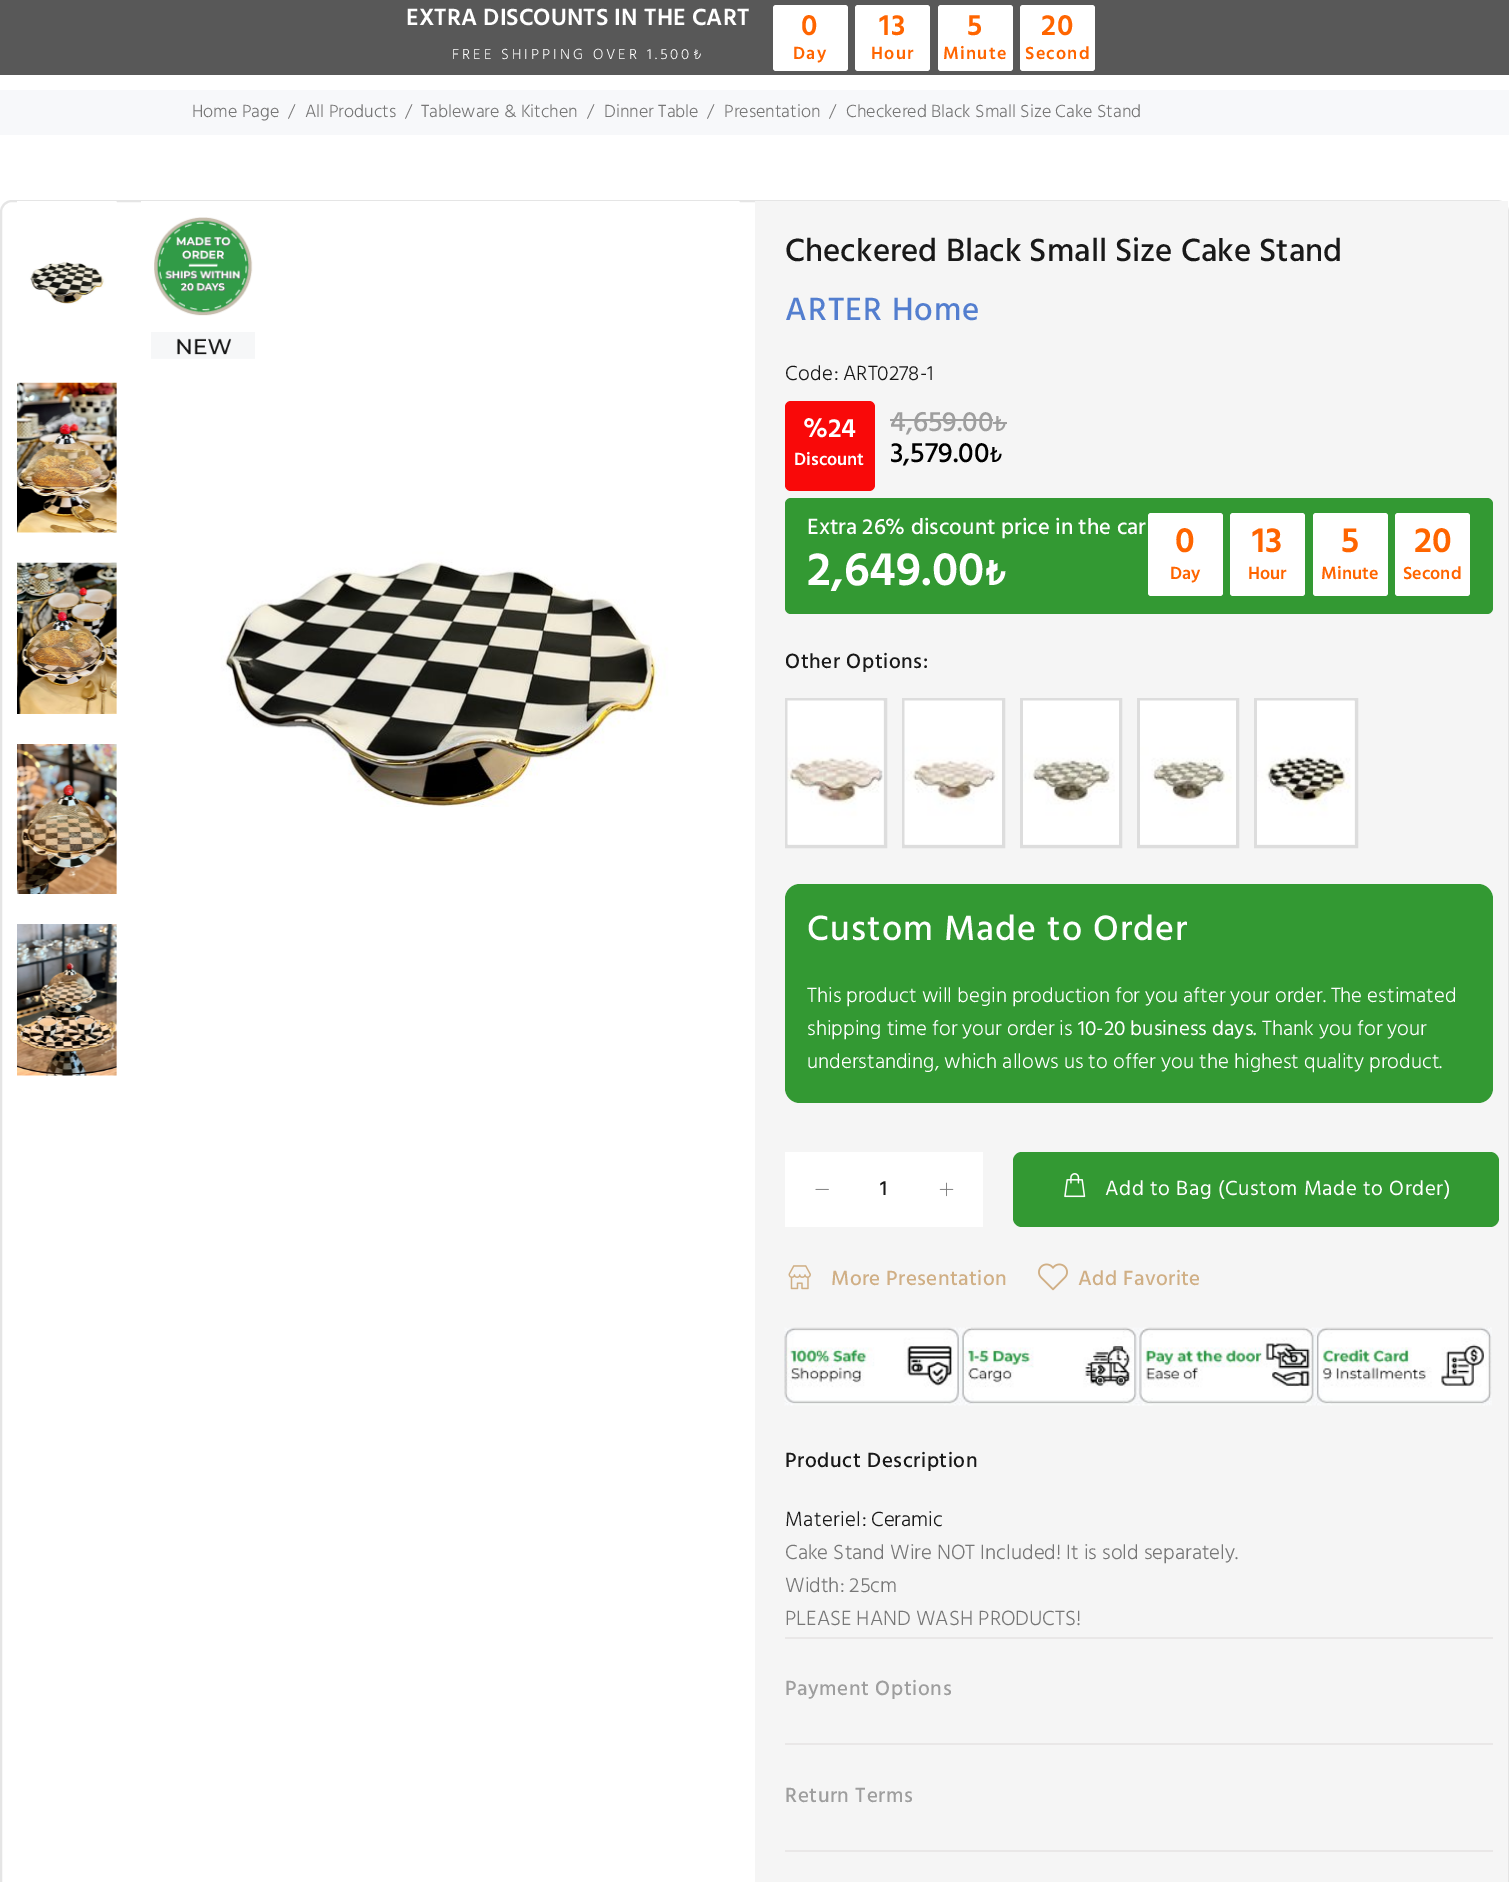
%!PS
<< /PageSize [1509 1882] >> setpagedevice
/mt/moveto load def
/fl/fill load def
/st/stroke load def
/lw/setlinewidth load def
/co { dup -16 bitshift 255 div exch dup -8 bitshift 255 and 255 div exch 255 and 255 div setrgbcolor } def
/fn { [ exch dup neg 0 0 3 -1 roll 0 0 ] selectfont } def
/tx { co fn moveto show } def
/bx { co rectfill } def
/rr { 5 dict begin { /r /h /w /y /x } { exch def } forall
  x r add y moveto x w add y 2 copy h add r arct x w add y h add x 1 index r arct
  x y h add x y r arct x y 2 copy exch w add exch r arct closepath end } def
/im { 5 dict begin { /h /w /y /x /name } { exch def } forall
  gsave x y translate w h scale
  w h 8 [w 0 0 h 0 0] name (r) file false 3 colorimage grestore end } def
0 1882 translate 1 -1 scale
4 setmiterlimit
0 0 1509 1882 16#FFFFFF bx
0 0 1509 75 16#585858 bx
16#FFFFFF co
773 5 75 66 3 rr fl
855 5 75 66 3 rr fl
938 5 75 66 3 rr fl
1020 5 75 66 3 rr fl
0 90 1509 45 16#F7F8FA bx
16#E5E5E5 co
2 lw
1 201 1507 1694 11 rr st
(media/1.raw) 17 201 100 103 im
(media/2.raw) 17 382 100 151 im
(media/3.raw) 17 562 100 152 im
(media/4.raw) 17 744 100 150 im
(media/5.raw) 17 924 100 152 im
(media/6.raw) 141 201 599 606 im
(media/7.raw) 154 217 99 99 im
(media/8.raw) 151 332 104 27 im
755 201 753 1681 16#F5F5F5 bx
16#F90909 co
785 401 90 90 6 rr fl
890 419 103 2 16#9E9E9E bx
993 422 14 2 16#9E9E9E bx
16#339933 co
785 498 708 116 6 rr fl
16#FFFFFF co
1148 513 75 83 3 rr fl
1230 513 75 83 3 rr fl
1313 513 75 83 3 rr fl
1395 513 75 83 3 rr fl
16#DDDDDD co
3 lw
786.5 699.5 99 147 rectstroke
(media/9.raw) 787 700 97 145 im
903.5 699.5 100 147 rectstroke
(media/10.raw) 904 700 98 145 im
1021.5 699.5 99 147 rectstroke
(media/11.raw) 1023 700 96 145 im
1138.5 699.5 99 147 rectstroke
(media/12.raw) 1140 700 96 145 im
1255.5 699.5 101 147 rectstroke
(media/13.raw) 1257 700 98 145 im
16#339933 co
785 884 708 219 15 rr fl
785 1152 198 75 16#FFFFFF bx
(media/14.raw) 815 1188 14 2 im
(media/15.raw) 939 1182 15 15 im
16#339933 co
1013 1152 486 75 9 rr fl
(media/16.raw) 1064 1173 22 25 im
(media/17.raw) 788 1265 23 25 im
(media/18.raw) 1038 1263 30 28 im
(media/19.raw) 784 1327 708 79 im
785 1637 708 2 16#E9E7E7 bx
785 1743 708 2 16#E9E7E7 bx
785 1850 708 2 16#E9E7E7 bx
/Hind-SemiBold 24 fn
16#FFFFFF co
406 25 mt .5 0 32 (EXTRA DISCOUNTS IN THE CART) widthshow
/Hind-Light 15 fn
452 59 mt .5 0 32 3 0 (FREE SHIPPING OVER 1.500₺) awidthshow
/Hind-SemiBold 30 fn
16#FF6500 co
801 35 mt 1.25 0 (0) ashow
/Hind-SemiBold 18 fn
793 59 mt 1.25 0 (Day) ashow
/Hind-SemiBold 30 fn
879 35 mt 1.25 0 (13) ashow
/Hind-SemiBold 18 fn
871 59 mt 1.25 0 (Hour) ashow
/Hind-SemiBold 30 fn
967 35 mt 1.25 0 (5) ashow
/Hind-SemiBold 18 fn
943 59 mt 1.25 0 (Minute) ashow
/Hind-SemiBold 30 fn
1041 35 mt 1.25 0 (20) ashow
/Hind-SemiBold 18 fn
1025 59 mt 1.25 0 (Second) ashow
(Home Page) 192 117 /Hind-Light 18 16#777777 tx
(/) 288 117 /Hind-Light 18 16#777777 tx
(All Products) 305 117 /Hind-Light 18 16#777777 tx
(/) 405 117 /Hind-Light 18 16#777777 tx
(Tableware & Kitchen) 421 117 /Hind-Light 18 16#777777 tx
(/) 587 117 /Hind-Light 18 16#777777 tx
(Dinner Table) 604 117 /Hind-Light 18 16#777777 tx
(/) 707 117 /Hind-Light 18 16#777777 tx
(Presentation) 724 117 /Hind-Light 18 16#777777 tx
(/) 829 117 /Hind-Light 18 16#777777 tx
(Checkered Black Small Size Cake Stand) 846 117 /Hind-Light 18 16#777777 tx
(Checkered Black Small Size Cake Stand) 785 261 /Hind-Medium 33 16#191919 tx
16#537ECF co
785 320 mt 1 0 (ARTER Home) ashow
/Hind-Light 21 fn
16#191919 co
785 380 mt .4 0 (Code:) ashow
(ART0278-1) 843 380 /Hind-Light 21 16#191919 tx
(%24) 803 437 /Hind-SemiBold 27 16#FFFFFF tx
(Discount) 794 465 /Hind-SemiBold 18 16#FFFFFF tx
(4,659.00) 890 431 /Hind-Medium 28.5 16#9E9E9E tx
(₺) 993 431 /Hind-Medium 23 16#9E9E9E tx
(3,579.00) 890 462 /Hind-Medium 28.5 16#000000 tx
(₺) 989 462 /Hind-Medium 23 16#000000 tx
(Extra 26% discount price in the car) 807 534 /Hind-Medium 22.5 16#FFFFFF tx
(0) 1175 552 /Hind-SemiBold 36 16#FF6500 tx
(Day) 1170 579 /Hind-SemiBold 18 16#FF6500 tx
(13) 1252 552 /Hind-SemiBold 36 16#FF6500 tx
(Hour) 1248 579 /Hind-SemiBold 18 16#FF6500 tx
(5) 1341 552 /Hind-SemiBold 36 16#FF6500 tx
(Minute) 1321 579 /Hind-SemiBold 18 16#FF6500 tx
(20) 1414 552 /Hind-SemiBold 36 16#FF6500 tx
(Second) 1403 579 /Hind-SemiBold 18 16#FF6500 tx
(2,649.00) 807 585 /Hind-SemiBold 48 16#FFFFFF tx
(₺) 984 585 /Hind-SemiBold 38 16#FFFFFF tx
/Hind-Medium 21 fn
16#191919 co
785 668 mt .6 0 (Other Options:) ashow
/Hind-Medium 36 fn
16#FFFFFF co
807 940 mt 1.1 0 (Custom Made to Order) ashow
(This product will begin production for you after your order. The estimated) 807 1002 /Hind-Light 21 16#FFFFFF tx
(shipping time for your order is) 807 1035 /Hind-Light 21 16#FFFFFF tx
(10-20 business days.) 1078 1035 /Hind-Regular 21 16#FFFFFF tx
(Thank you for your) 1262 1035 /Hind-Light 21 16#FFFFFF tx
(understanding, which allows us to offer you the highest quality product.) 807 1068 /Hind-Light 21 16#FFFFFF tx
(1) 880 1195 /Hind-Medium 21 16#191919 tx
/Hind-Regular 21 fn
16#FFFFFF co
1105 1195 mt .6 0 (Add to Bag \(Custom Made to Order\)) ashow
/Hind-Medium 21 fn
16#D0AF85 co
831 1285 mt .4 0 (More Presentation) ashow
1078 1285 mt .4 0 (Add Favorite) ashow
16#191919 co
785 1467 mt .6 0 (Product Description) ashow
/Hind-Light 21 fn
785 1526 mt .4 0 (Materiel:) ashow
(Ceramic) 871 1526 /Hind-Light 21 16#191919 tx
(Cake Stand Wire NOT Included! It is sold separately.) 785 1559 /Hind-Light 21 16#777777 tx
(Width: 25cm) 785 1592 /Hind-Light 21 16#777777 tx
(PLEASE HAND WASH PRODUCTS!) 785 1625 /Hind-Light 21 16#777777 tx
/Hind-Medium 21 fn
16#9E9E9E co
785 1695 mt .6 0 (Payment Options) ashow
785 1802 mt .6 0 (Return Terms) ashow
showpage
